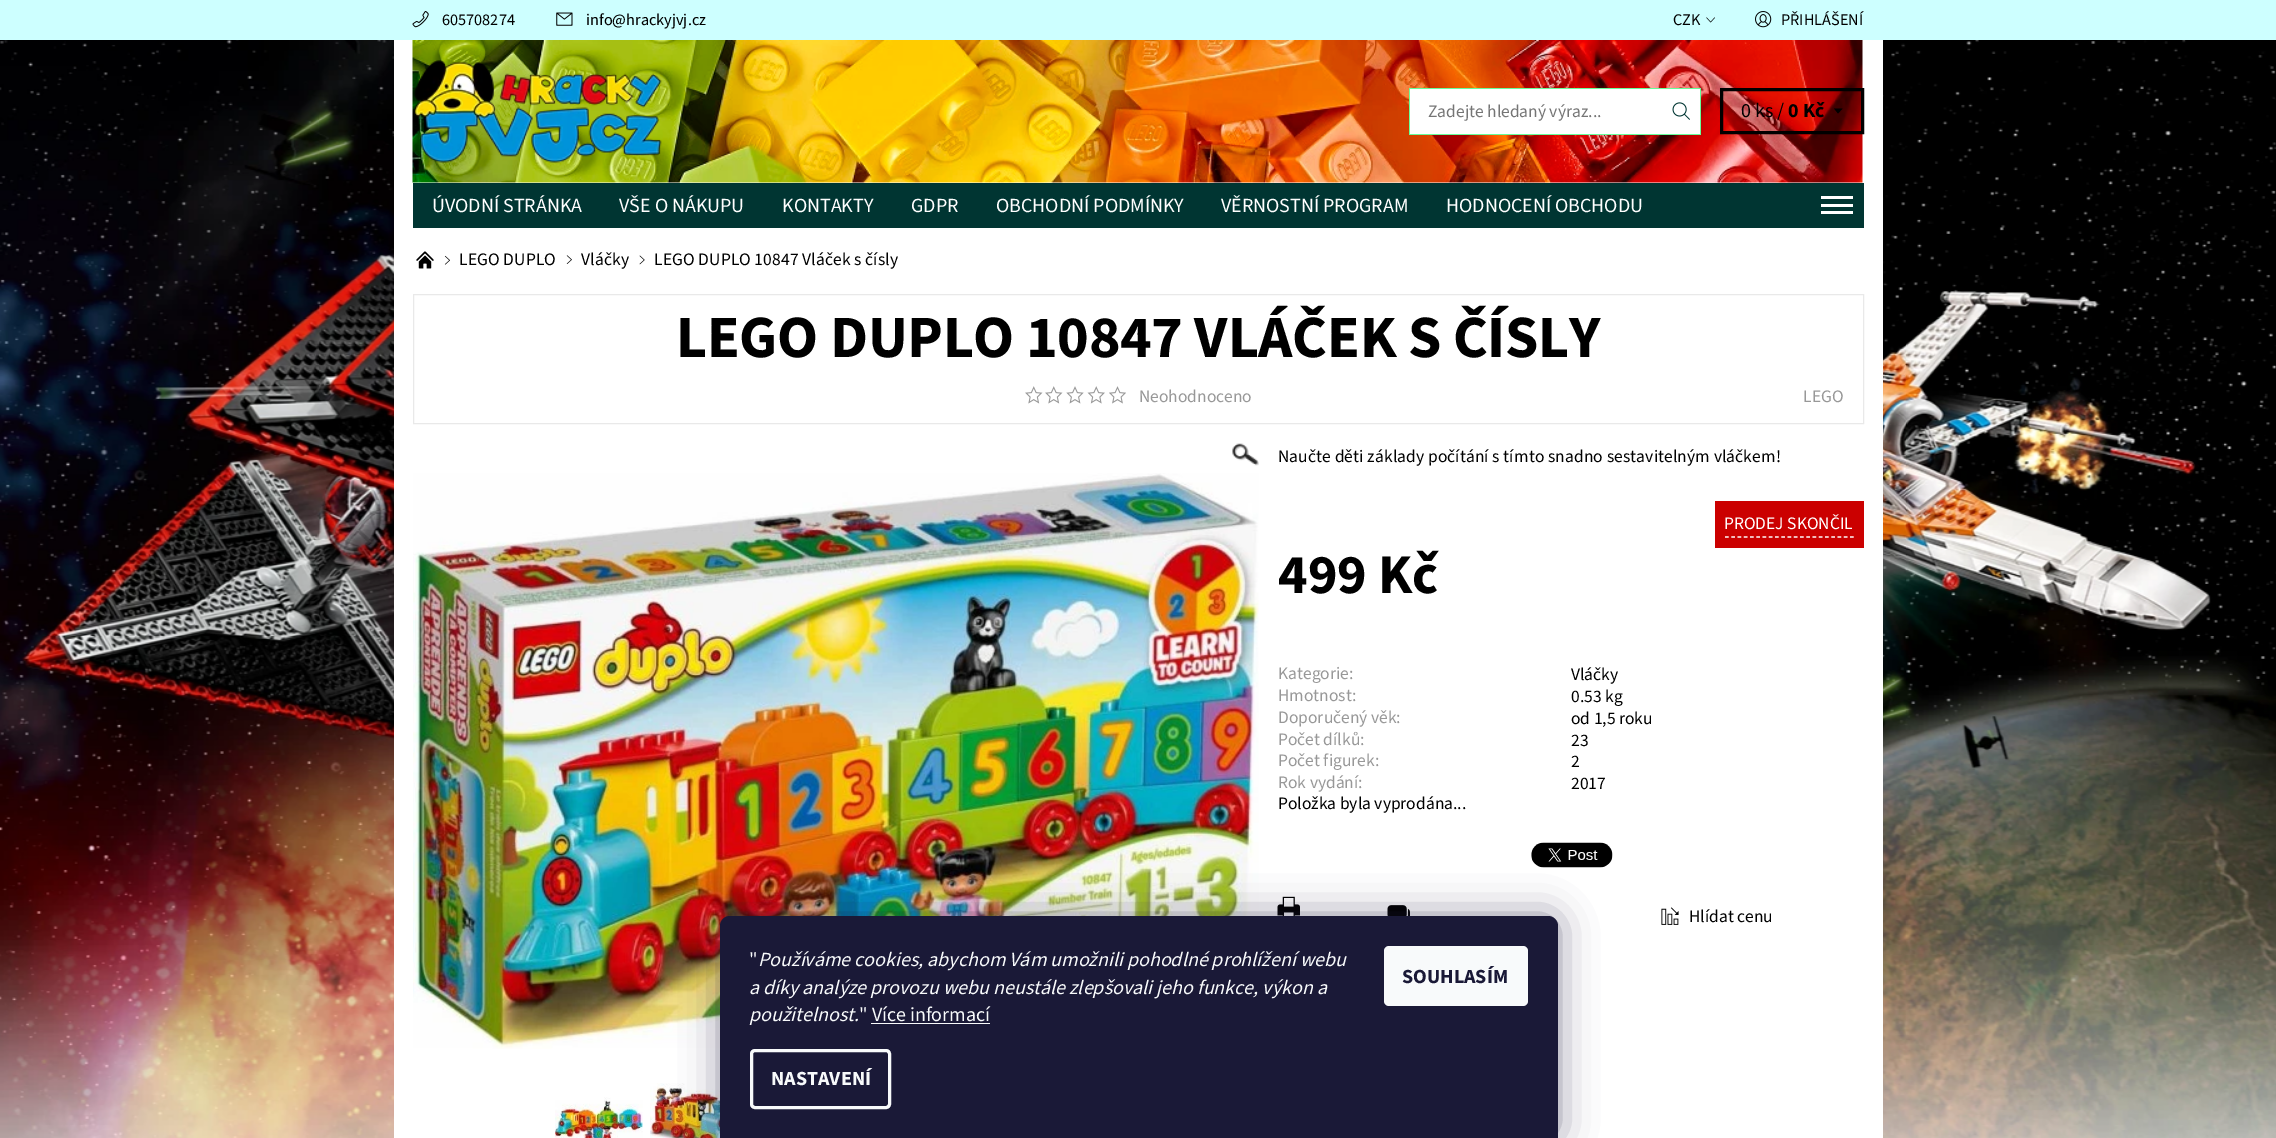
%!PS
<< /PageSize [2276 1138] /PageUsesTransparency true >> setpagedevice
/mt/moveto load def
/li/lineto load def
/ct/curveto load def
/cp/closepath load def
/fl/fill load def
/st/stroke load def
/lw/setlinewidth load def
/co { dup -16 bitshift 255 div exch dup -8 bitshift 255 and 255 div exch 255 and 255 div setrgbcolor } def
/fn { [ exch dup neg 0 0 3 -1 roll 0 0 ] selectfont } def
/tx { co fn moveto show } def
/bx { co rectfill } def
/al { dup .setfillconstantalpha .setstrokeconstantalpha } def
/rr { 5 dict begin { /r /h /w /y /x } { exch def } forall
  x r add y moveto x w add y 2 copy h add r arct x w add y h add x 1 index r arct
  x y h add x y r arct x y 2 copy exch w add exch r arct closepath end } def
/sh { 12 dict begin { /a /b /q /h /w /y /x } { exch def } forall gsave /was 0 def
  9 -2 -9 { dup b mul 4 div /e exch def 1 sub .425 mul 2.718 exch exp 1 add a .99 .min exch div /now exch def
    1 1 now sub 1 was sub div sub al /was now def
    w h .min e 2 mul add 0 gt { x e sub y e sub w e 2 mul add h e 2 mul add
      q e add b .6 mul add w h .min 2 div e add .min 0 .max rr fill } if } for grestore end } def
/im { 5 dict begin { /h /w /y /x /name } { exch def } forall
  gsave x y translate w h scale
  w h 8 [w 0 0 h 0 0] name (r) file false 3 colorimage grestore end } def
0 .pushpdf14devicefilter
0 1138 translate 1 -1 scale
4 setmiterlimit
0 0 2276 1138 16#FFFFFF bx
(media/1.raw) 0 40 2276 1098 im
0 0 2276 40 16#CDFFFF bx
(media/2.raw) 412 11 17 17 im
(media/3.raw) 556 12 17 14 im
(media/4.raw) 1706 17 9 6 im
(media/5.raw) 1755 11 17 17 im
394 40 1489 1098 16#FFFFFF bx
(media/6.raw) 412 40 1451 143 im
(media/7.raw) 414 60 248 103 im
1410 89 290 45 16#FFFFFF bx
1409 88 292 1 16#67FD9A bx
1409 134 254 1 16#67FD9A bx
1409 88 1 47 16#67FD9A bx
1700 88 1 47 16#67FD9A bx
1663 134 38 1 16#67FD9A bx
(media/8.raw) 1672 102 18 18 im
16#000000 co
3 lw
1721.5 89.5 141 43 rectstroke
1838 108.5 mt 1842.5 108.5 li 1838 113.5 li 1834 108.5 li cp fl
413 183 1451 45 16#003532 bx
1821 196 32 3 16#FFFFFF bx
1821 204 32 3 16#FFFFFF bx
1821 211 32 3 16#FFFFFF bx
(media/9.raw) 416 251 18 18 im
(media/10.raw) 444 255 6 10 im
(media/11.raw) 566 255 6 9 im
(media/12.raw) 639 255 6 10 im
16#E9E9E9 co
1 lw
413.5 294.5 1450 129 rectstroke
(media/13.raw) 1025 386 18 18 im
(media/13.raw) 1045 386 18 18 im
(media/14.raw) 1066 386 18 18 im
(media/15.raw) 1087 386 18 18 im
(media/16.raw) 1109 386 17 18 im
(media/17.raw) 1232 443 27 23 im
(media/18.raw) 413 473 846 576 im
(media/19.raw) 555 1097 88 41 im
(media/20.raw) 650 1083 70 55 im
1715 501 149 47 16#CB0000 bx
16#FFFFFF co
1.2 lw
[3.75 2.5] 0 setdash
1725 537 mt 1854 537 li st
(media/21.raw) 1531 842 82 26 im
(media/22.raw) 1277 896 23 20 im
(media/23.raw) 1387 905 23 11 im
(media/24.raw) 1661 907 18 18 im
16#1B1939 co
720 916 838 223 10 19 .5 sh
16#1A1937 co
730 916 mt 1548 916 li 1553.5 916 1558 920.5 1558 926 ct 1558 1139 li 720 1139 li 720 926 li 720 920.5 724.5 916 730 916 ct cp fl
871 1023 119 1 16#F8FAFB bx
3 lw
[] 0 setdash
751.5 1050.5 138 57 3.5 rr st
1384 946 144 60 5 rr fl
(605708274) 442 25 /SourceSans3-Regular 16.25 16#000000 tx
(info@hrackyjvj.cz) 586 25 /SourceSans3-Regular 16.25 16#000000 tx
(CZK) 1673 25 /SourceSans3-Regular 16.25 16#000000 tx
(PŘIHLÁŠENÍ) 1781 25 /SourceSans3-Regular 16.25 16#000000 tx
(Zadejte hledaný výraz...) 1428 117 /SourceSans3-Regular 17.5 16#757575 tx
(0 ks /) 1741 117 /SourceSans3-Regular 20 16#000000 tx
(0 Kč) 1788 117 /SourceSans3-Bold 20 16#000000 tx
(ÚVODNÍ STRÁNKA) 432 212 /SourceSans3-Regular 20 16#FFFFFF tx
(VŠE O NÁKUPU) 619 212 /SourceSans3-Regular 20 16#FFFFFF tx
(KONTAKTY) 782 212 /SourceSans3-Regular 20 16#FFFFFF tx
(GDPR) 911 212 /SourceSans3-Regular 20 16#FFFFFF tx
(OBCHODNÍ PODMÍNKY) 996 212 /SourceSans3-Regular 20 16#FFFFFF tx
(VĚRNOSTNÍ PROGRAM) 1221 212 /SourceSans3-Regular 20 16#FFFFFF tx
(HODNOCENÍ OBCHODU) 1446 212 /SourceSans3-Regular 20 16#FFFFFF tx
/SourceSans3-Regular 17.5 fn
16#000000 co
459 265 mt .12 0 (LEGO DUPLO) ashow
581 265 mt .12 0 (Vláčky) ashow
654 265 mt .12 0 (LEGO DUPLO 10847 Vláček s čísly) ashow
/SourceSans3-Bold 60 fn
676 357 mt -.3 0 (LEGO DUPLO 10847 VLÁČEK S ČÍSLY) ashow
(Neohodnoceno) 1139 402 /SourceSans3-Regular 17.5 16#989898 tx
(LEGO) 1803 402 /SourceSans3-Regular 17.5 16#989898 tx
16#000000 co
1278 462 mt .12 0 (Naučte děti základy počítání s tímto snadno sestavitelným vláčkem!) ashow
(PRODEJ SKONČIL) 1724 529 /SourceSans3-Regular 17.5 16#FFFFFF tx
(499 Kč) 1278 593 /SourceSans3-Bold 56 16#000000 tx
(Kategorie:) 1278 679 /SourceSans3-Regular 17.5 16#989898 tx
(Vláčky) 1571 680 /SourceSans3-Regular 17.5 16#000000 tx
(Hmotnost:) 1278 701 /SourceSans3-Regular 17.5 16#989898 tx
(0.53 kg) 1571 702 /SourceSans3-Regular 17.5 16#000000 tx
(Doporučený věk:) 1278 723 /SourceSans3-Regular 17.5 16#989898 tx
(od 1,5 roku) 1571 724 /SourceSans3-Regular 17.5 16#000000 tx
(Počet dílků:) 1278 745 /SourceSans3-Regular 17.5 16#989898 tx
(23) 1571 746 /SourceSans3-Regular 17.5 16#000000 tx
(Počet figurek:) 1278 766 /SourceSans3-Regular 17.5 16#989898 tx
(2) 1571 767 /SourceSans3-Regular 17.5 16#000000 tx
(Rok vydání:) 1278 788 /SourceSans3-Regular 17.5 16#989898 tx
(2017) 1571 789 /SourceSans3-Regular 17.5 16#000000 tx
(Položka byla vyprodána...) 1278 809 /SourceSans3-Regular 17.5 16#000000 tx
(Hlídat cenu) 1689 922 /SourceSans3-Regular 17.5 16#000000 tx
(") 749 966 /SourceSans3-Regular 20 16#F8FAFB tx
(Používáme cookies, abychom Vám umožnili pohodlné prohlížení webu) 758 966 /SourceSans3-Italic 20 16#F8FAFB tx
(a díky analýze provozu webu neustále zlepšovali jeho funkce, výkon a) 749 994 /SourceSans3-Italic 20 16#F8FAFB tx
(použitelnost.) 749 1021 /SourceSans3-Italic 20 16#F8FAFB tx
(" Více informací) 859 1021 /SourceSans3-Regular 20 16#F8FAFB tx
(NASTAVENÍ) 771 1085 /SourceSans3-Bold 20 16#F8FAFB tx
(SOUHLASÍM) 1402 983 /SourceSans3-Bold 20 16#1A1937 tx
.poppdf14devicefilter showpage
